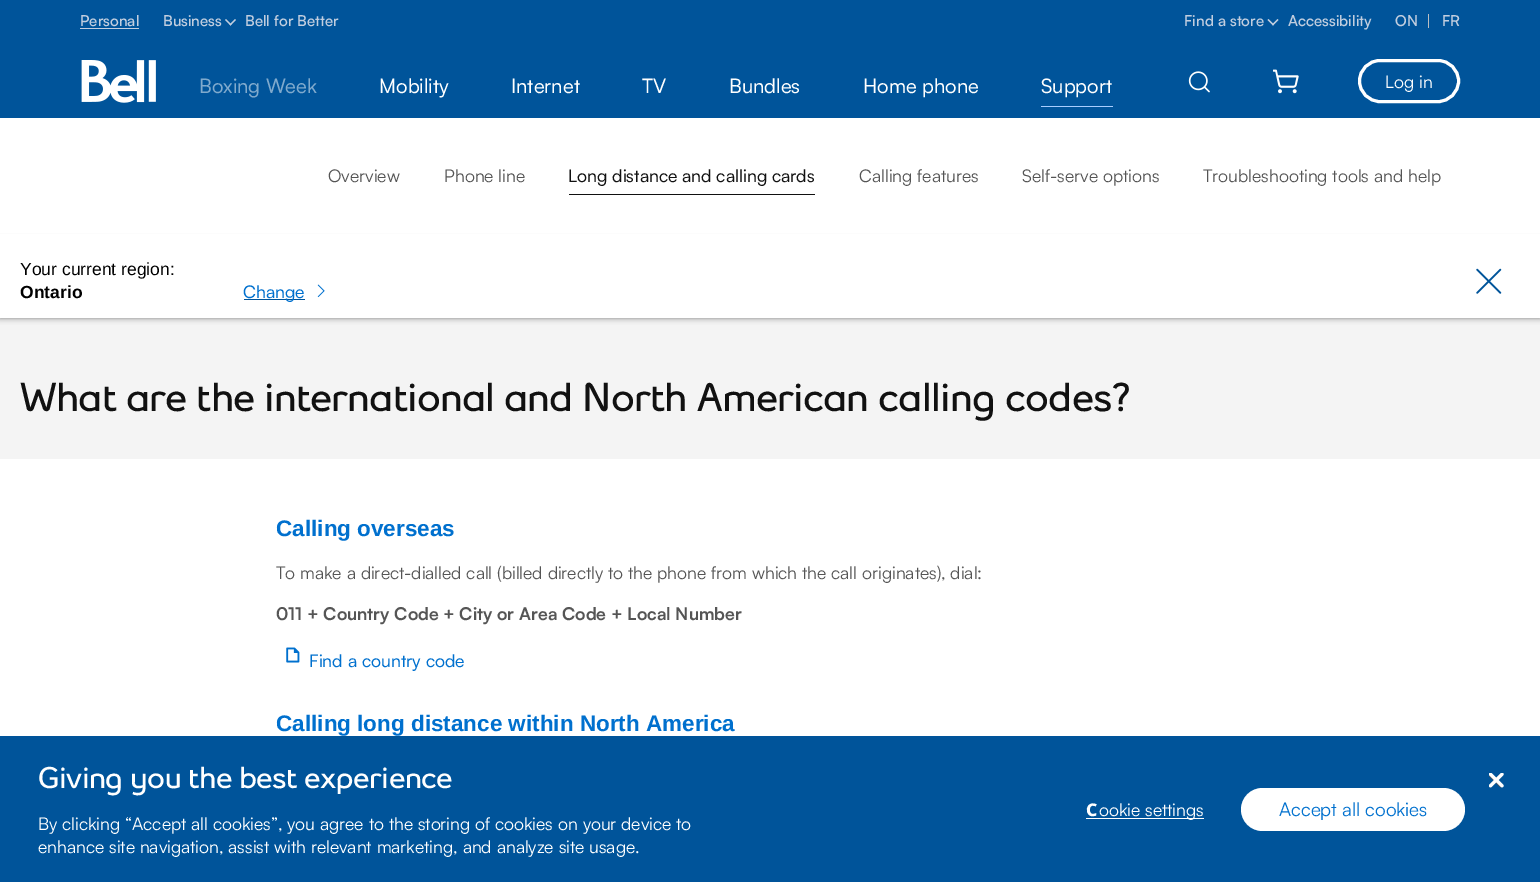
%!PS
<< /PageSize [1540 882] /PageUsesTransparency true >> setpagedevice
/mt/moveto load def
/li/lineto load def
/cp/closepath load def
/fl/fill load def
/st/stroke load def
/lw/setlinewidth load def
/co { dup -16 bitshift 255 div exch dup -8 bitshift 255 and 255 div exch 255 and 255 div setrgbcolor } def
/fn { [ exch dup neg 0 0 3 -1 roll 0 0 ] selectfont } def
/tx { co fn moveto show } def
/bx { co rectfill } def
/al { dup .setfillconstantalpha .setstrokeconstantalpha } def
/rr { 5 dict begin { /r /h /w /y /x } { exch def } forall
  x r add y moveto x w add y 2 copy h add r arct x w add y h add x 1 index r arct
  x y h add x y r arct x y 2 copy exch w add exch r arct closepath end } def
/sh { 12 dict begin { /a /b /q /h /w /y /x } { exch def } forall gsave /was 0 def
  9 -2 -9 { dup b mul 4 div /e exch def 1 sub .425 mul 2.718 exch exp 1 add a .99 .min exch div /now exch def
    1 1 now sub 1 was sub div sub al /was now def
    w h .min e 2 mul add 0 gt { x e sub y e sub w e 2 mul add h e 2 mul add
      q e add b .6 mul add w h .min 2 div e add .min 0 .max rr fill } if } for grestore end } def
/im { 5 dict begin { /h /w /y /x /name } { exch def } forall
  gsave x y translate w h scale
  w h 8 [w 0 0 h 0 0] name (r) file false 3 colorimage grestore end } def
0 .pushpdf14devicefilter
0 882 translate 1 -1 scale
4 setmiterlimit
0 0 1540 882 16#FFFFFF bx
0 0 1540 118 16#00549A bx
80 28 59 1 16#C2CEDF bx
235 19 mt 236 20 li 230.5 25.5 li 229.5 24.5 li cp fl
226 19 mt 231.5 24.5 li 230.5 25.5 li 225 20 li cp fl
1277.5 19 mt 1278.5 20 li 1273 25.5 li 1272 24.5 li cp fl
1268.5 19 mt 1274 24.5 li 1273 25.5 li 1267.5 20 li cp fl
1428 14 1 14 16#BABEC2 bx
(media/1.raw) 81 60 75 43 im
1041 106 72 1 16#A8CDFF bx
(media/2.raw) 1188 71 22 22 im
(media/3.raw) 1273 69 26 25 im
16#FFFFFF co
3 lw
1359.5 60.5 99 41 20.5 rr st
569 194 246 1 16#111111 bx
0 318 1540 141 16#F4F4F4 bx
16#000000 co
0 240 1540 78 0 3 .5 sh
0 234 1540 84 16#FFFFFF bx
244 299 61 1 16#00549A bx
(media/4.raw) 317 284 8 14 im
(media/5.raw) 1476 268 26 26 im
(media/6.raw) 286 647 14 16 im
0 736 1540 146 16#00549A bx
1086 818 118 1 16#FFFFFF bx
1241 788 224 43 21.5 rr fl
(media/7.raw) 1489 774 14 14 im
(media/8.raw) 1489 773 15 15 im
(Personal) 80 26 /Satoshi-Medium 15 16#C2CEDF tx
(Business) 163 26 /Satoshi-Medium 15 16#C2CEDF tx
(Bell for Better) 245 26 /Satoshi-Medium 15 16#C2CEDF tx
(Find a store) 1184 26 /Satoshi-Medium 15 16#C2CEDF tx
(Accessibility) 1288 26 /Satoshi-Medium 15 16#C2CEDF tx
(ON) 1395 26 /Satoshi-Medium 15 16#C2CEDF tx
(FR) 1442 26 /Satoshi-Medium 15 16#C2CEDF tx
(Boxing Week) 199 93 /Satoshi-Regular 20 16#80AACD tx
(Mobility) 379 93 /Satoshi-Regular 20 16#FFFFFF tx
(Internet) 511 93 /Satoshi-Regular 20 16#FFFFFF tx
(TV) 642 93 /Satoshi-Regular 20 16#FFFFFF tx
(Bundles) 729 93 /Satoshi-Regular 20 16#FFFFFF tx
(Home phone) 863 93 /Satoshi-Regular 20 16#FFFFFF tx
(Support) 1041 93 /Satoshi-Regular 20 16#FFFFFF tx
(Log in) 1385 88 /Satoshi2-Regular 17.5 16#FFFFFF tx
(Overview) 328 182 /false-Regular 17.5 16#555555 tx
(Phone line) 444 182 /false-Regular 17.5 16#555555 tx
(Long distance and calling cards) 568 182 /Satoshi-Regular 17.5 16#111111 tx
(Calling features) 859 182 /false-Regular 17.5 16#555555 tx
(Self-serve options) 1022 182 /false-Regular 17.5 16#555555 tx
(Troubleshooting tools and help) 1203 182 /false-Regular 17.5 16#555555 tx
(Your current region:) 20 275 /LiberationSans-Regular 17.5 16#000000 tx
(Ontario) 20 298 /LiberationSans-Bold 17.5 16#000000 tx
(Change) 243 298 /Satoshi-Regular 17.5 16#0070CE tx
/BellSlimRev-Black 40 fn
16#111111 co
20 411 mt -.62 0 (What are the international and North American calling codes?) ashow
(Calling overseas) 276 536 /LiberationSans-Bold 22.5 16#0070CE tx
(To make a direct-dialled call \(billed directly to the phone from which the call originates\), dial:) 276 579 /Satoshi2-Regular 17.5 16#555555 tx
(011 + Country Code + City or Area Code + Local Number) 276 620 /Satoshi-Bold 17.5 16#555555 tx
(Find a country code) 309 667 /Satoshi-Regular 17.5 16#0070CE tx
(Calling long distance within North America) 276 731 /LiberationSans-Bold 22.5 16#0070CE tx
/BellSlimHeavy-Black 30 fn
16#FFFFFF co
38 788 mt -.5 0 (Giving you the best experience) ashow
(By clicking “Accept all cookies”, you agree to the storing of cookies on your device to) 38 830 /Satoshi2-Regular 17.5 16#FFFFFF tx
(enhance site navigation, assist with relevant marketing, and analyze site usage.) 38 853 /Satoshi2-Regular 17.5 16#FFFFFF tx
(C) 1086 816 /NotoSans-ExtraBold 17.5 16#FFFFFF tx
(ookie settings) 1099 816 /Satoshi2-Regular 17.5 16#FFFFFF tx
(Accept all cookies) 1279 816 /Satoshi2-Regular 18.75 16#0070CE tx
.poppdf14devicefilter showpage
